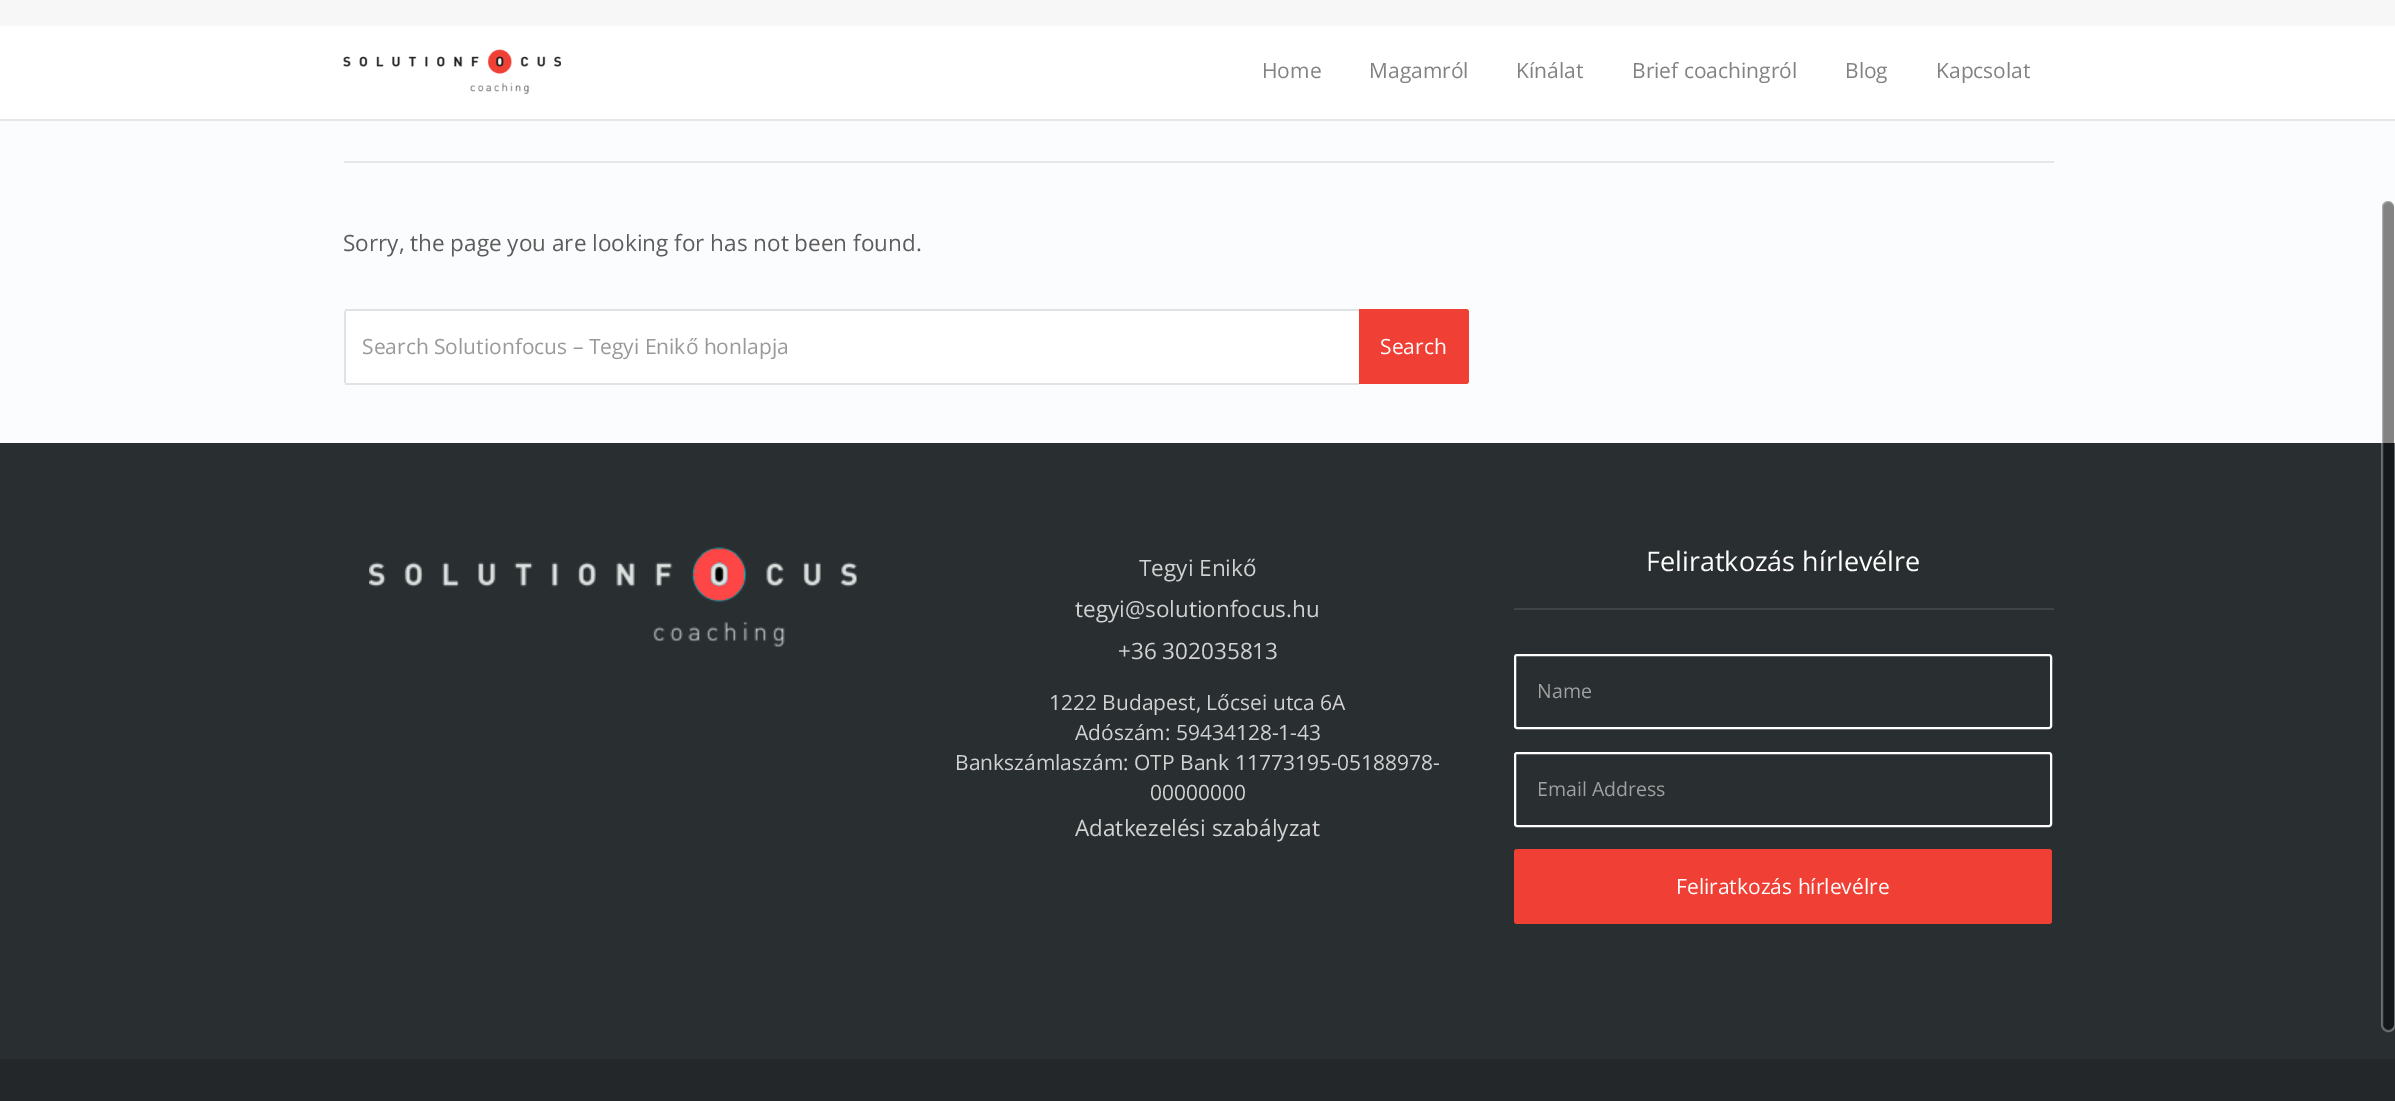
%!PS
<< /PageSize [2395 1101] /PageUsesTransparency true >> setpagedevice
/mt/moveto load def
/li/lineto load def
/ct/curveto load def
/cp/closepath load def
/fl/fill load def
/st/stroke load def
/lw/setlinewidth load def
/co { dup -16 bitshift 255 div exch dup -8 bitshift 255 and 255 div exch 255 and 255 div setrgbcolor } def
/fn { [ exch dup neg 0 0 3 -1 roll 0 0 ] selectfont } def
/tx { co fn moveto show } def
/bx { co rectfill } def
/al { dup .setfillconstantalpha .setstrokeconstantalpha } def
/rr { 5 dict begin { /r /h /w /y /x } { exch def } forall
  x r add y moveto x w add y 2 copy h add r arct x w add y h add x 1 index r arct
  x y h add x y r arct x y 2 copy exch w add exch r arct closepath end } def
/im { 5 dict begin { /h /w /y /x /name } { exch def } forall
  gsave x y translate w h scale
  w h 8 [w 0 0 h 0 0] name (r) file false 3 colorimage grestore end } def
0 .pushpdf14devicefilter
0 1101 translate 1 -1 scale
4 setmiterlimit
0 0 2395 1101 16#FBFCFD bx
0 26 2395 93 16#FFFFFF bx
0 119 2395 2 16#E7E7E7 bx
0 0 2395 26 16#F7F7F7 bx
(media/1.raw) 343 49 218 46 im
344 161 1710 2 16#E6E6E6 bx
16#FFFFFF co
347 309 mt 1359 309 li 1359 384 li 347 384 li 345.5 384 344 382.5 344 381 ct 344 312 li 344 310.5 345.5 309 347 309 ct cp fl
345 309 1014 2 16#E2E2E2 bx
345 383 1014 2 16#E2E2E2 bx
344 311 2 72 16#E2E2E2 bx
16#F04035 co
1359 309 mt 1466 309 li 1467.5 309 1469 310.5 1469 312 ct 1469 381 li 1469 382.5 1467.5 384 1466 384 ct 1359 384 li cp fl
0 443 2395 616 16#292E31 bx
0.48 al
16#000000 co
2382 201 12 830 6 rr fl
0.32 al
16#FFFFFF co
2 lw
2382 201 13 830 6.5 rr st
1 al
(media/2.raw) 369 547 488 100 im
1514 608 540 2 16#3E4346 bx
16#FFFFFF co
1515 655 536 73 2 rr st
1515 753 536 73 2 rr st
16#F04035 co
1514 849 538 75 3 rr fl
0 1059 2395 42 16#23272A bx
(Home) 1262 78 /OpenSans-Regular 21 16#828282 tx
(Magamról) 1369 78 /OpenSans-Regular 21 16#828282 tx
(Kínálat) 1516 78 /OpenSans-Regular 21 16#828282 tx
(Brief coachingról) 1632 78 /OpenSans-Regular 21 16#828282 tx
(Blog) 1845 78 /OpenSans-Regular 21 16#828282 tx
(Kapcsolat) 1936 78 /OpenSans-Regular 21 16#828282 tx
(Sorry, the page you are looking for has not been found.) 343 251 /OpenSans-Regular 22.5 16#5C5C5C tx
(Search Solutionfocus – Tegyi Enikő honlapja) 362 354 /OpenSans-Regular 21 16#999999 tx
(Search) 1380 354 /OpenSans-Regular 21 16#FFFFFF tx
(Tegyi Enikő) 1139 576 /OpenSans-Regular 22.5 16#D2D2D2 tx
(tegyi@solutionfocus.hu) 1075 617 /OpenSans-Regular 22.5 16#D2D2D2 tx
(+36 302035813) 1118 659 /OpenSans-Regular 22.5 16#D2D2D2 tx
(1222 Budapest, Lőcsei utca 6A) 1049 710 /OpenSans-Regular 21 16#D2D2D2 tx
(Adószám: 59434128-1-43) 1075 740 /OpenSans-Regular 21 16#D2D2D2 tx
(Bankszámlaszám: OTP Bank 11773195-05188978-) 955 770 /OpenSans-Regular 21 16#D2D2D2 tx
(00000000) 1150 800 /OpenSans-Regular 21 16#D2D2D2 tx
(Adatkezelési szabályzat) 1075 836 /OpenSans-Regular 22.5 16#D2D2D2 tx
(Feliratkozás hírlevélre) 1646 571 /OpenSans-Regular 27 16#FFFFFF tx
(Name) 1537 698 /OpenSans-Regular 19.5 16#A1A1A1 tx
(Email Address) 1537 796 /OpenSans-Regular 19.5 16#A1A1A1 tx
(Feliratkozás hírlevélre) 1676 894 /OpenSans-Regular 21 16#FFFFFF tx
.poppdf14devicefilter showpage
